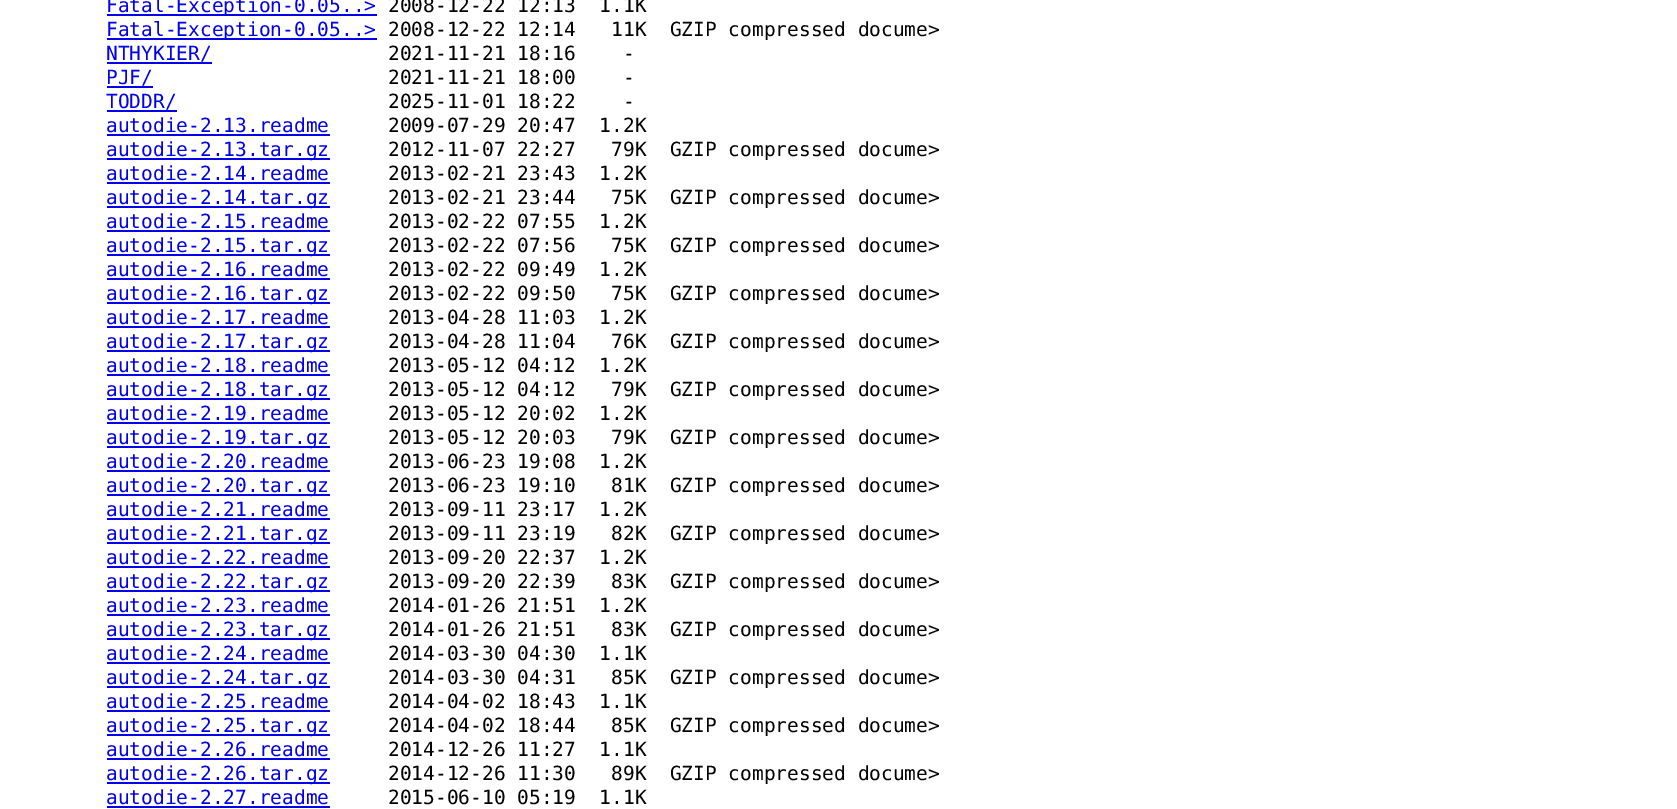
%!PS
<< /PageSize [1677 809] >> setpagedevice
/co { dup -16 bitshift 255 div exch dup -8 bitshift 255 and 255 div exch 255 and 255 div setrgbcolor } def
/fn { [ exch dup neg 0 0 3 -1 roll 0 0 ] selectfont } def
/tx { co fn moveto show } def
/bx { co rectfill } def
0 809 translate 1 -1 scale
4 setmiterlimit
0 0 1677 809 16#FFFFFF bx
107 14 270 2 16#0000EE bx
107 38 270 2 16#0000EE bx
107 62 105 2 16#0000EE bx
107 86 46 2 16#0000EE bx
107 110 70 2 16#0000EE bx
107 134 223 2 16#0000EE bx
107 158 223 2 16#0000EE bx
107 182 223 2 16#0000EE bx
107 206 223 2 16#0000EE bx
107 230 223 2 16#0000EE bx
107 254 223 2 16#0000EE bx
107 278 223 2 16#0000EE bx
107 302 223 2 16#0000EE bx
107 326 223 2 16#0000EE bx
107 350 223 2 16#0000EE bx
107 374 223 2 16#0000EE bx
107 398 223 2 16#0000EE bx
107 422 223 2 16#0000EE bx
107 446 223 2 16#0000EE bx
107 470 223 2 16#0000EE bx
107 494 223 2 16#0000EE bx
107 518 223 2 16#0000EE bx
107 542 223 2 16#0000EE bx
107 566 223 2 16#0000EE bx
107 590 223 2 16#0000EE bx
107 614 223 2 16#0000EE bx
107 638 223 2 16#0000EE bx
107 662 223 2 16#0000EE bx
107 686 223 2 16#0000EE bx
107 710 223 2 16#0000EE bx
107 734 223 2 16#0000EE bx
107 758 223 2 16#0000EE bx
107 782 223 2 16#0000EE bx
107 806 223 2 16#0000EE bx
(Fatal-Exception-0.05..>) 106 12 /DejaVuSansMono-Regular 19.5 16#0000EE tx
(2008-12-22 12:13  1.1K) 388 12 /DejaVuSansMono-Regular 19.5 16#000000 tx
(Fatal-Exception-0.05..>) 106 36 /DejaVuSansMono-Regular 19.5 16#0000EE tx
(2008-12-22 12:14   11K  GZIP compressed docume>) 388 36 /DejaVuSansMono-Regular 19.5 16#000000 tx
(NTHYKIER/) 106 60 /DejaVuSansMono-Regular 19.5 16#0000EE tx
(2021-11-21 18:16    -) 388 60 /DejaVuSansMono-Regular 19.5 16#000000 tx
(PJF/) 106 84 /DejaVuSansMono-Regular 19.5 16#0000EE tx
(2021-11-21 18:00    -) 388 84 /DejaVuSansMono-Regular 19.5 16#000000 tx
(TODDR/) 106 108 /DejaVuSansMono-Regular 19.5 16#0000EE tx
(2025-11-01 18:22    -) 388 108 /DejaVuSansMono-Regular 19.5 16#000000 tx
(autodie-2.13.readme) 106 132 /DejaVuSansMono-Regular 19.5 16#0000EE tx
(2009-07-29 20:47  1.2K) 388 132 /DejaVuSansMono-Regular 19.5 16#000000 tx
(autodie-2.13.tar.gz) 106 156 /DejaVuSansMono-Regular 19.5 16#0000EE tx
(2012-11-07 22:27   79K  GZIP compressed docume>) 388 156 /DejaVuSansMono-Regular 19.5 16#000000 tx
(autodie-2.14.readme) 106 180 /DejaVuSansMono-Regular 19.5 16#0000EE tx
(2013-02-21 23:43  1.2K) 388 180 /DejaVuSansMono-Regular 19.5 16#000000 tx
(autodie-2.14.tar.gz) 106 204 /DejaVuSansMono-Regular 19.5 16#0000EE tx
(2013-02-21 23:44   75K  GZIP compressed docume>) 388 204 /DejaVuSansMono-Regular 19.5 16#000000 tx
(autodie-2.15.readme) 106 228 /DejaVuSansMono-Regular 19.5 16#0000EE tx
(2013-02-22 07:55  1.2K) 388 228 /DejaVuSansMono-Regular 19.5 16#000000 tx
(autodie-2.15.tar.gz) 106 252 /DejaVuSansMono-Regular 19.5 16#0000EE tx
(2013-02-22 07:56   75K  GZIP compressed docume>) 388 252 /DejaVuSansMono-Regular 19.5 16#000000 tx
(autodie-2.16.readme) 106 276 /DejaVuSansMono-Regular 19.5 16#0000EE tx
(2013-02-22 09:49  1.2K) 388 276 /DejaVuSansMono-Regular 19.5 16#000000 tx
(autodie-2.16.tar.gz) 106 300 /DejaVuSansMono-Regular 19.5 16#0000EE tx
(2013-02-22 09:50   75K  GZIP compressed docume>) 388 300 /DejaVuSansMono-Regular 19.5 16#000000 tx
(autodie-2.17.readme) 106 324 /DejaVuSansMono-Regular 19.5 16#0000EE tx
(2013-04-28 11:03  1.2K) 388 324 /DejaVuSansMono-Regular 19.5 16#000000 tx
(autodie-2.17.tar.gz) 106 348 /DejaVuSansMono-Regular 19.5 16#0000EE tx
(2013-04-28 11:04   76K  GZIP compressed docume>) 388 348 /DejaVuSansMono-Regular 19.5 16#000000 tx
(autodie-2.18.readme) 106 372 /DejaVuSansMono-Regular 19.5 16#0000EE tx
(2013-05-12 04:12  1.2K) 388 372 /DejaVuSansMono-Regular 19.5 16#000000 tx
(autodie-2.18.tar.gz) 106 396 /DejaVuSansMono-Regular 19.5 16#0000EE tx
(2013-05-12 04:12   79K  GZIP compressed docume>) 388 396 /DejaVuSansMono-Regular 19.5 16#000000 tx
(autodie-2.19.readme) 106 420 /DejaVuSansMono-Regular 19.5 16#0000EE tx
(2013-05-12 20:02  1.2K) 388 420 /DejaVuSansMono-Regular 19.5 16#000000 tx
(autodie-2.19.tar.gz) 106 444 /DejaVuSansMono-Regular 19.5 16#0000EE tx
(2013-05-12 20:03   79K  GZIP compressed docume>) 388 444 /DejaVuSansMono-Regular 19.5 16#000000 tx
(autodie-2.20.readme) 106 468 /DejaVuSansMono-Regular 19.5 16#0000EE tx
(2013-06-23 19:08  1.2K) 388 468 /DejaVuSansMono-Regular 19.5 16#000000 tx
(autodie-2.20.tar.gz) 106 492 /DejaVuSansMono-Regular 19.5 16#0000EE tx
(2013-06-23 19:10   81K  GZIP compressed docume>) 388 492 /DejaVuSansMono-Regular 19.5 16#000000 tx
(autodie-2.21.readme) 106 516 /DejaVuSansMono-Regular 19.5 16#0000EE tx
(2013-09-11 23:17  1.2K) 388 516 /DejaVuSansMono-Regular 19.5 16#000000 tx
(autodie-2.21.tar.gz) 106 540 /DejaVuSansMono-Regular 19.5 16#0000EE tx
(2013-09-11 23:19   82K  GZIP compressed docume>) 388 540 /DejaVuSansMono-Regular 19.5 16#000000 tx
(autodie-2.22.readme) 106 564 /DejaVuSansMono-Regular 19.5 16#0000EE tx
(2013-09-20 22:37  1.2K) 388 564 /DejaVuSansMono-Regular 19.5 16#000000 tx
(autodie-2.22.tar.gz) 106 588 /DejaVuSansMono-Regular 19.5 16#0000EE tx
(2013-09-20 22:39   83K  GZIP compressed docume>) 388 588 /DejaVuSansMono-Regular 19.5 16#000000 tx
(autodie-2.23.readme) 106 612 /DejaVuSansMono-Regular 19.5 16#0000EE tx
(2014-01-26 21:51  1.2K) 388 612 /DejaVuSansMono-Regular 19.5 16#000000 tx
(autodie-2.23.tar.gz) 106 636 /DejaVuSansMono-Regular 19.5 16#0000EE tx
(2014-01-26 21:51   83K  GZIP compressed docume>) 388 636 /DejaVuSansMono-Regular 19.5 16#000000 tx
(autodie-2.24.readme) 106 660 /DejaVuSansMono-Regular 19.5 16#0000EE tx
(2014-03-30 04:30  1.1K) 388 660 /DejaVuSansMono-Regular 19.5 16#000000 tx
(autodie-2.24.tar.gz) 106 684 /DejaVuSansMono-Regular 19.5 16#0000EE tx
(2014-03-30 04:31   85K  GZIP compressed docume>) 388 684 /DejaVuSansMono-Regular 19.5 16#000000 tx
(autodie-2.25.readme) 106 708 /DejaVuSansMono-Regular 19.5 16#0000EE tx
(2014-04-02 18:43  1.1K) 388 708 /DejaVuSansMono-Regular 19.5 16#000000 tx
(autodie-2.25.tar.gz) 106 732 /DejaVuSansMono-Regular 19.5 16#0000EE tx
(2014-04-02 18:44   85K  GZIP compressed docume>) 388 732 /DejaVuSansMono-Regular 19.5 16#000000 tx
(autodie-2.26.readme) 106 756 /DejaVuSansMono-Regular 19.5 16#0000EE tx
(2014-12-26 11:27  1.1K) 388 756 /DejaVuSansMono-Regular 19.5 16#000000 tx
(autodie-2.26.tar.gz) 106 780 /DejaVuSansMono-Regular 19.5 16#0000EE tx
(2014-12-26 11:30   89K  GZIP compressed docume>) 388 780 /DejaVuSansMono-Regular 19.5 16#000000 tx
(autodie-2.27.readme) 106 804 /DejaVuSansMono-Regular 19.5 16#0000EE tx
(2015-06-10 05:19  1.1K) 388 804 /DejaVuSansMono-Regular 19.5 16#000000 tx
showpage
